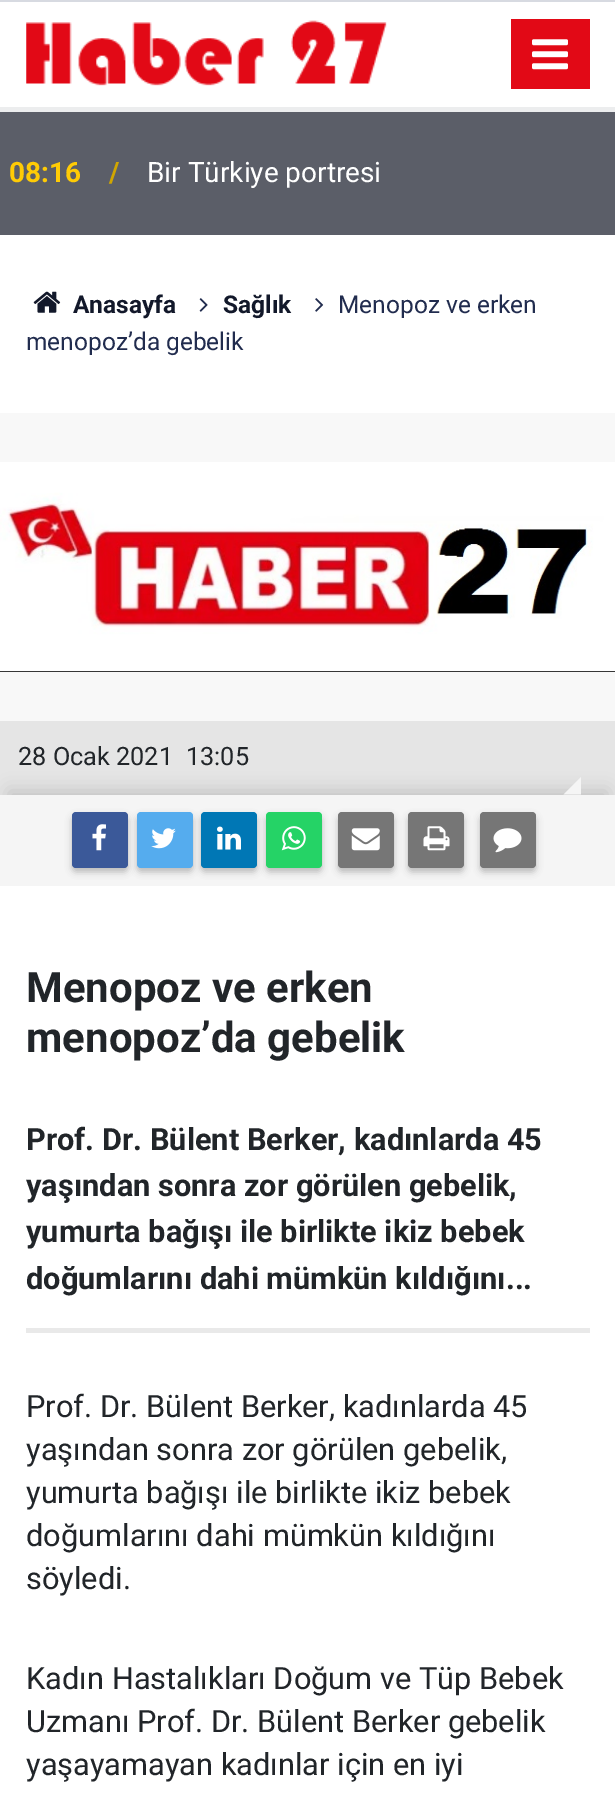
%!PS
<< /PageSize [615 1809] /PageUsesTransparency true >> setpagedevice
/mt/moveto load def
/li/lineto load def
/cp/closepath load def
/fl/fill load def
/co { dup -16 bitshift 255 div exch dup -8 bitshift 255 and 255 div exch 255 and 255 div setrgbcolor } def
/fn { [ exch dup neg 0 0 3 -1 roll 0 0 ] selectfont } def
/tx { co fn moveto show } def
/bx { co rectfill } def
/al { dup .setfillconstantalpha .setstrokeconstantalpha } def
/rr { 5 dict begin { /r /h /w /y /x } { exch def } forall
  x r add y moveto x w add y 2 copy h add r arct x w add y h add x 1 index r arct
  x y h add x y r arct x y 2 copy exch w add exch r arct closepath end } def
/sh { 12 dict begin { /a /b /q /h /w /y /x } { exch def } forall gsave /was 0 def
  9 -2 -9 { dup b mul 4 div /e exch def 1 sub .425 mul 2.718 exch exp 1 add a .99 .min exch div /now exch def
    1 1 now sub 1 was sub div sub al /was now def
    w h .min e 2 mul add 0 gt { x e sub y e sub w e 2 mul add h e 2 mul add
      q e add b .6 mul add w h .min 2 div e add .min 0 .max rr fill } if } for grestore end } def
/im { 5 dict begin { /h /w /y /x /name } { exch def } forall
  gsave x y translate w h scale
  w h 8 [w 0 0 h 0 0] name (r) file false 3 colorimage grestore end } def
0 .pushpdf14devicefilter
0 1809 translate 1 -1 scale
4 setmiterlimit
0 0 615 1809 16#FFFFFF bx
0 0 615 2 16#D7DAE1 bx
0 107 615 5 16#ECEDEE bx
(media/1.raw) 26 20 361 66 im
511 19 79 70 16#E20916 bx
(media/2.raw) 532 39 36 31 im
0 112 615 123 16#5B5E68 bx
(media/3.raw) 33 291 28 22 im
(media/4.raw) 199 298 9 14 im
(media/5.raw) 315 298 9 14 im
0 413 615 308 16#F8F8F8 bx
(media/6.raw) 0 462 615 210 im
0 721 615 74 16#E5E5E5 bx
16#000000 co
9 791 598 74 0 9 .15 sh
0 795 615 91 16#F5F5F5 bx
581 794.5 mt 563.5 794.5 li 581 777 li cp fl
16#323232 co
72 816 56 56 4 3.5 .3 sh
16#3B5999 co
72 812 56 56 4 rr fl
(media/7.raw) 92 824 14 27 im
16#323232 co
137 816 56 56 4 3.5 .3 sh
16#55ACEE co
137 812 56 56 4 rr fl
(media/8.raw) 151 828 25 21 im
16#323232 co
201 816 56 56 4 3.5 .3 sh
16#0077B5 co
201 812 56 56 4 rr fl
(media/9.raw) 217 826 24 24 im
16#323232 co
266 816 56 56 4 3.5 .3 sh
16#25D366 co
266 812 56 56 4 rr fl
(media/10.raw) 281 826 25 25 im
16#323232 co
338 816 56 56 4 3.5 .3 sh
16#767676 co
338 812 56 56 4 rr fl
(media/11.raw) 351 828 29 23 im
16#323232 co
408 816 56 56 4 3.5 .3 sh
16#767676 co
408 812 56 56 4 rr fl
(media/12.raw) 423 826 27 25 im
16#323232 co
480 816 56 56 4 3.5 .3 sh
16#767676 co
480 812 56 56 4 rr fl
(media/13.raw) 493 828 29 25 im
26 1328 564 5 16#E9E9E9 bx
(08:16) 9 182 /Roboto-Bold 28 16#FFCB05 tx
(/) 109 182 /Roboto-Bold 28 16#D1A600 tx
(Bir Türkiye portresi) 147 182 /Roboto-Regular 28 16#FFFFFF tx
(Anasayfa) 73 313 /Roboto-Bold 24.5 16#12182A tx
(Sağlık) 223 313 /Roboto-Bold 24.5 16#12182A tx
(Menopoz ve erken) 338 313 /Roboto-Regular 24.5 16#212C4E tx
(menopoz’da gebelik) 26 350 /Roboto-Regular 24.5 16#212C4E tx
(28 Ocak 2021) 18 765 /Roboto-Regular 25.25 16#212529 tx
(13:05) 186 765 /Roboto-Regular 25.25 16#212529 tx
(Menopoz ve erken) 26 1002 /Roboto-Bold 42 16#212529 tx
(menopoz’da gebelik) 26 1052 /Roboto-Bold 42 16#212529 tx
(Prof. Dr. Bülent Berker, kadınlarda 45) 26 1150 /Roboto-Bold 30.75 16#212529 tx
(yaşından sonra zor görülen gebelik,) 26 1196 /Roboto-Bold 30.75 16#212529 tx
(yumurta bağışı ile birlikte ikiz bebek) 26 1242 /Roboto-Bold 30.75 16#212529 tx
(doğumlarını dahi mümkün kıldığını...) 26 1289 /Roboto-Bold 30.75 16#212529 tx
(Prof. Dr. Bülent Berker, kadınlarda 45) 26 1417 /Roboto-Regular 30.75 16#212529 tx
(yaşından sonra zor görülen gebelik,) 26 1460 /Roboto-Regular 30.75 16#212529 tx
(yumurta bağışı ile birlikte ikiz bebek) 26 1503 /Roboto-Regular 30.75 16#212529 tx
(doğumlarını dahi mümkün kıldığını) 26 1546 /Roboto-Regular 30.75 16#212529 tx
(söyledi.) 26 1589 /Roboto-Regular 30.75 16#212529 tx
(Kadın Hastalıkları Doğum ve Tüp Bebek) 26 1689 /Roboto-Regular 30.75 16#212529 tx
(Uzmanı Prof. Dr. Bülent Berker gebelik) 26 1732 /Roboto-Regular 30.75 16#212529 tx
(yaşayamayan kadınlar için en iyi) 26 1775 /Roboto-Regular 30.75 16#212529 tx
.poppdf14devicefilter showpage
